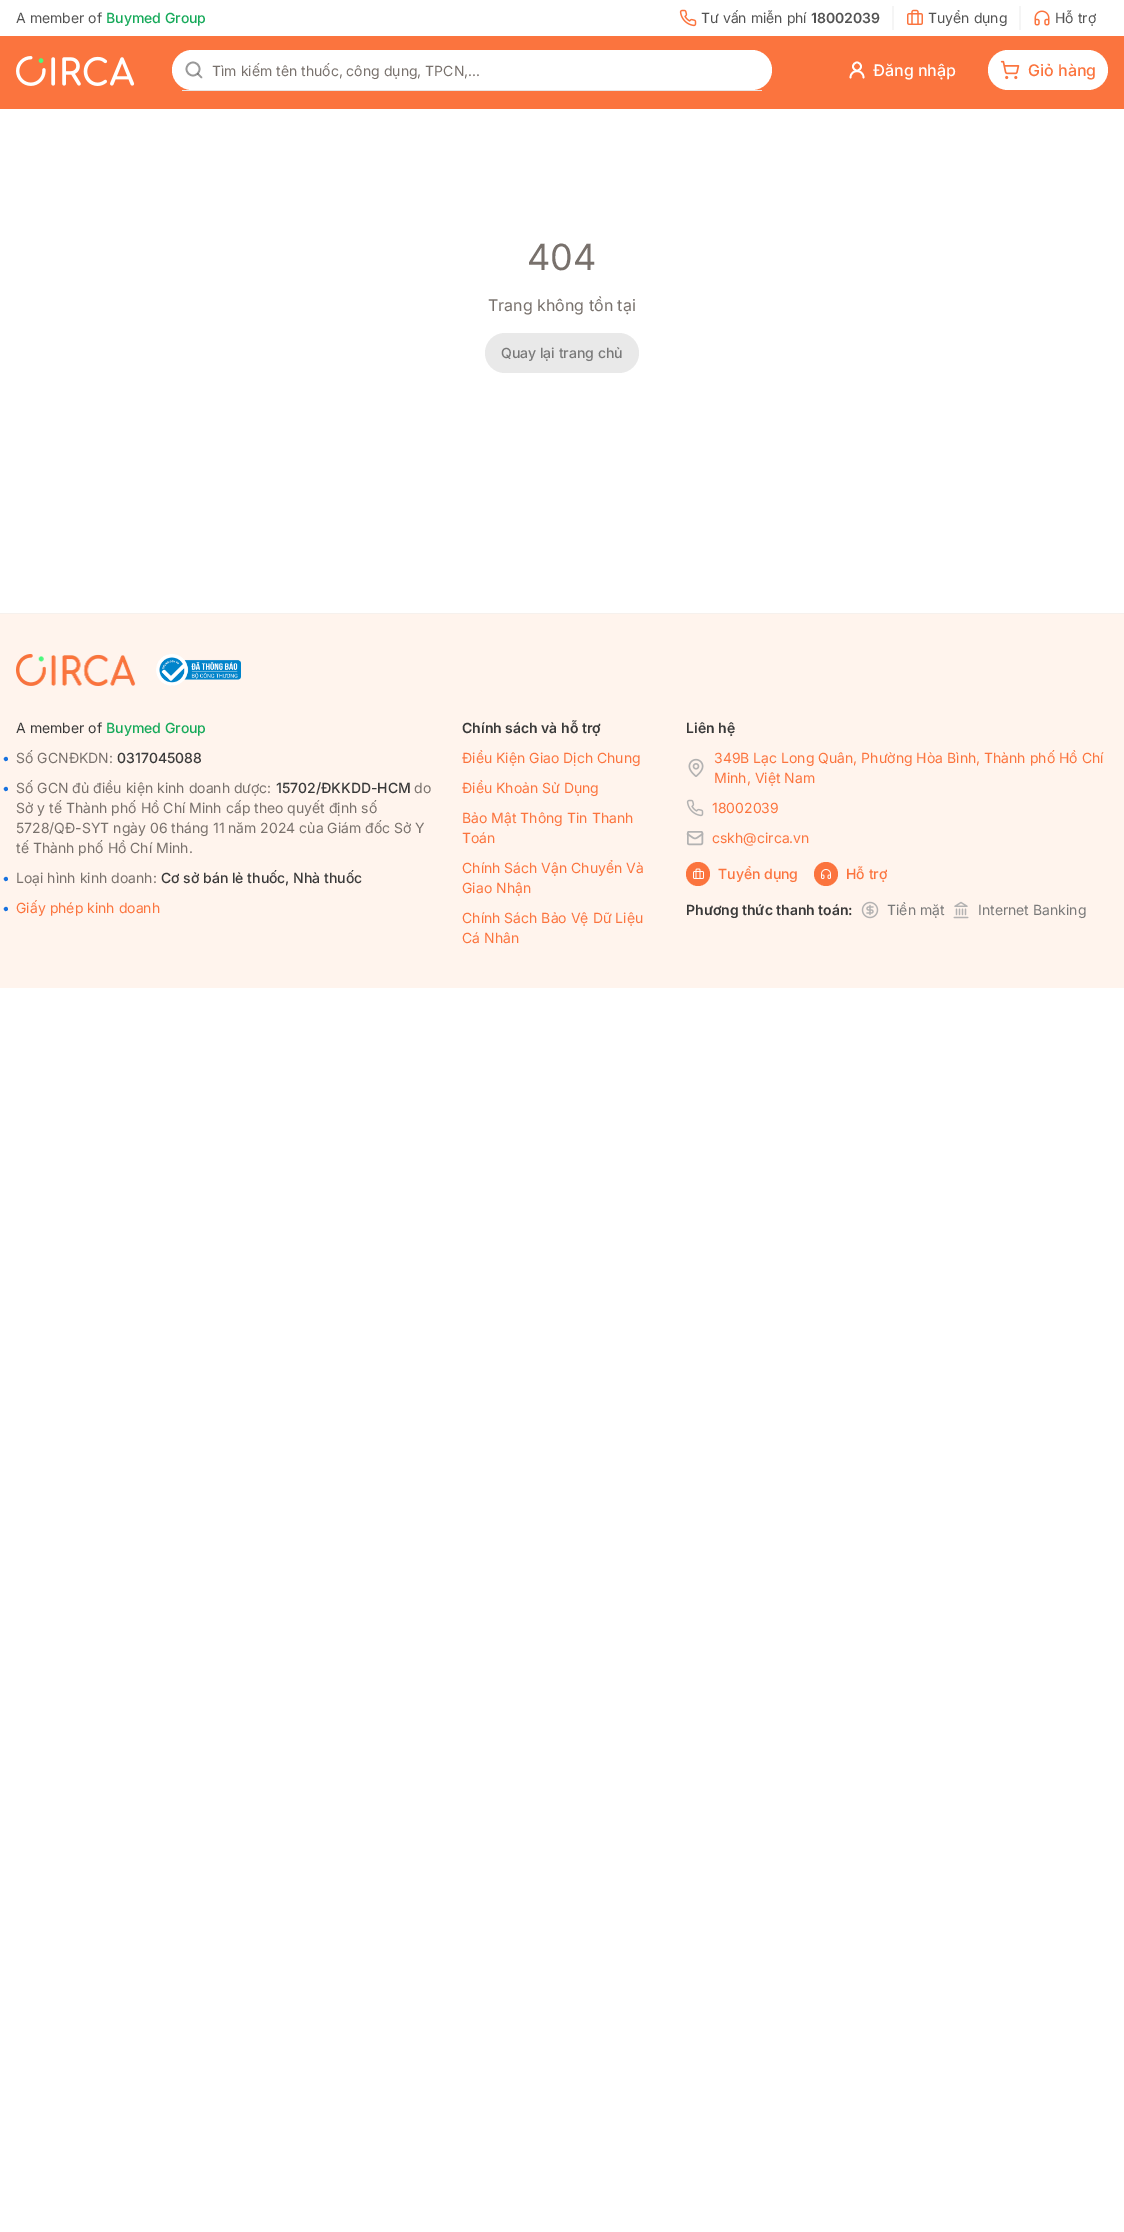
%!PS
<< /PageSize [1124 2232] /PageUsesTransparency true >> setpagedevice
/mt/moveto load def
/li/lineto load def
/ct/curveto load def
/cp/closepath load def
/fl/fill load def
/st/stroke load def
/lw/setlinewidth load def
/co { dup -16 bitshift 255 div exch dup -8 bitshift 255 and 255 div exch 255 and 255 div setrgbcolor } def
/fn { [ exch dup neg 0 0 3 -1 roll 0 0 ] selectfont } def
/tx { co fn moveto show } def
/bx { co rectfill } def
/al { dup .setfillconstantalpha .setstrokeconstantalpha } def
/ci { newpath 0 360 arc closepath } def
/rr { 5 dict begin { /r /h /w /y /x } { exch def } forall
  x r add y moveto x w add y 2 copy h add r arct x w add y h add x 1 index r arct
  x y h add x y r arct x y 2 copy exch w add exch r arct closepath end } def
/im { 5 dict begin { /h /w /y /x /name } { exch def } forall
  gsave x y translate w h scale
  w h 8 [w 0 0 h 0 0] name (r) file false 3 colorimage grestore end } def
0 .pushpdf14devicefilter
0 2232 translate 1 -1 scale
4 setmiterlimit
0 0 1124 2232 16#FFFFFF bx
(media/1.raw) 679 9 18 18 im
892 6 2 24 16#F5F5F5 bx
(media/2.raw) 907 9 16 16 im
1019 6 2 24 16#F5F5F5 bx
(media/3.raw) 1034 10 16 16 im
0 36 1124 73 16#FB743E bx
(media/4.raw) 16 56 119 30 im
16#FFFFFF co
192 50 mt 752 50 li 763 50 772 59 772 70 ct 772 81 763 90 752 90 ct 192 90 li 181 90 172 81 172 70 ct 172 59 181 50 192 50 ct cp fl
182 90 580 1 16#E7E5E4 bx
16#999999 co
1.7 lw
193 69 6.5 ci st
0.4 al
16#000000 co
1 setlinecap
1 setlinejoin
201.5 77.5 mt 198 74 li st
1 al
16#FFFFFF co
0 setlinecap
0 setlinejoin
857 66.5 4 ci st
1 setlinecap
1 setlinejoin
863.5 77.5 mt 863.5 69 850.5 69 850.5 77.5 ct st
988 50 120 40 20 rr fl
(media/5.raw) 1000 60 20 20 im
16#E9E9E9 co
485 333 154 40 20 rr fl
0 614 1124 374 16#FFF4ED bx
0 613 1124 1 16#F6F1ED bx
(media/6.raw) 16 654 120 32 im
(media/7.raw) 156 654 85 32 im
(media/8.raw) 688 758 16 19 im
(media/9.raw) 686 799 18 18 im
16#B3B2B2 co
1.5 lw
0 setlinecap
0 setlinejoin
687.75 831.75 14.5 12.5 1.25 rr st
1 setlinecap
1 setlinejoin
702.5 834 mt 693.5 840 696.5 840 687.5 834 ct st
16#FB743E co
698 874 12 ci fl
(media/10.raw) 693 868 11 11 im
826 874 12 ci fl
(media/11.raw) 821 869 10 10 im
(media/12.raw) 861 901 18 18 im
(media/13.raw) 953 901 16 18 im
(A member of) 16 23 /Inter-Regular 14 16#525252 tx
(Buymed Group) 106 23 /Inter-Medium 14 16#15A959 tx
(Tư vấn miễn phí) 701 23 /Inter-Regular 14 16#525252 tx
(18002039) 811 23 /Inter-SemiBold 14 16#525252 tx
(Tuyển dụng) 928 23 /Inter-Regular 14 16#525252 tx
(Hỗ trợ) 1055 23 /Inter-Regular 14 16#525252 tx
(Tìm kiếm tên thuốc, công dụng, TPCN,...) 212 76 /Inter-Regular 14 16#78716C tx
(Đăng nhập) 873 76 /Inter-Medium 16 16#FFFFFF tx
(Giỏ hàng) 1028 76 /Inter-Medium 16 16#FB743E tx
(404) 527 270 /Inter-Regular 36 16#78716C tx
(Trang không tồn tại) 488 311 /Inter-Regular 16 16#78716C tx
(Quay lại trang chủ) 501 358 /Inter-Medium 14 16#797979 tx
(A member of) 16 733 /Inter-Regular 14 16#393939 tx
(Buymed Group) 106 733 /Inter-Medium 14 16#15A959 tx
(•) 2 763 /Inter-Regular 14 16#1772E0 tx
(Số GCNĐKDN:) 16 763 /Inter-Regular 14 16#78716C tx
(0317045088) 117 763 /Inter-Medium 14 16#393939 tx
(•) 2 793 /Inter-Regular 14 16#1772E0 tx
(Số GCN đủ điều kiện kinh doanh dược:) 16 793 /Inter-Regular 14 16#78716C tx
(15702/ĐKKDD-HCM) 276 793 /Inter-Medium 14 16#393939 tx
(do) 414 793 /Inter-Regular 14 16#78716C tx
(Sở y tế Thành phố Hồ Chí Minh cấp theo quyết định số) 16 813 /Inter-Regular 14 16#78716C tx
(5728/QĐ-SYT ngày 06 tháng 11 năm 2024 của Giám đốc Sở Y) 16 833 /Inter-Regular 14 16#78716C tx
(tế Thành phố Hồ Chí Minh.) 16 853 /Inter-Regular 14 16#78716C tx
(•) 2 883 /Inter-Regular 14 16#1772E0 tx
(Loại hình kinh doanh:) 16 883 /Inter-Regular 14 16#78716C tx
(Cơ sở bán lẻ thuốc, Nhà thuốc) 161 883 /Inter-Medium 14 16#393939 tx
(•) 2 913 /Inter-Regular 14 16#1772E0 tx
(Giấy phép kinh doanh) 16 913 /Inter-Regular 14 16#FB743E tx
(Chính sách và hỗ trợ) 462 733 /Inter-SemiBold 14 16#393939 tx
(Điều Kiện Giao Dịch Chung) 462 763 /Inter-Regular 14 16#FB743E tx
(Điều Khoản Sử Dụng) 462 793 /Inter-Regular 14 16#FB743E tx
(Bảo Mật Thông Tin Thanh) 462 823 /Inter-Regular 14 16#FB743E tx
(Toán) 462 843 /Inter-Regular 14 16#FB743E tx
(Chính Sách Vận Chuyển Và) 462 873 /Inter-Regular 14 16#FB743E tx
(Giao Nhận) 462 893 /Inter-Regular 14 16#FB743E tx
(Chính Sách Bảo Vệ Dữ Liệu) 462 923 /Inter-Regular 14 16#FB743E tx
(Cá Nhân) 462 943 /Inter-Regular 14 16#FB743E tx
(Liên hệ) 686 733 /Inter-SemiBold 14 16#393939 tx
(349B Lạc Long Quân, Phường Hòa Bình, Thành phố Hồ Chí) 714 763 /Inter-Regular 14 16#FB743E tx
(Minh, Việt Nam) 714 783 /Inter-Regular 14 16#FB743E tx
(18002039) 712 813 /Inter-Regular 14 16#FB743E tx
(cskh@circa.vn) 712 843 /Inter-Regular 14 16#FB743E tx
(Tuyển dụng) 718 879 /Inter-Medium 14 16#FB743E tx
(Hỗ trợ) 846 879 /Inter-Medium 14 16#FB743E tx
(Phương thức thanh toán:) 686 915 /Inter-SemiBold 14 16#393939 tx
(Tiền mặt) 887 915 /Inter-Regular 14 16#797979 tx
(Internet Banking) 978 915 /Inter-Regular 14 16#797979 tx
.poppdf14devicefilter showpage
